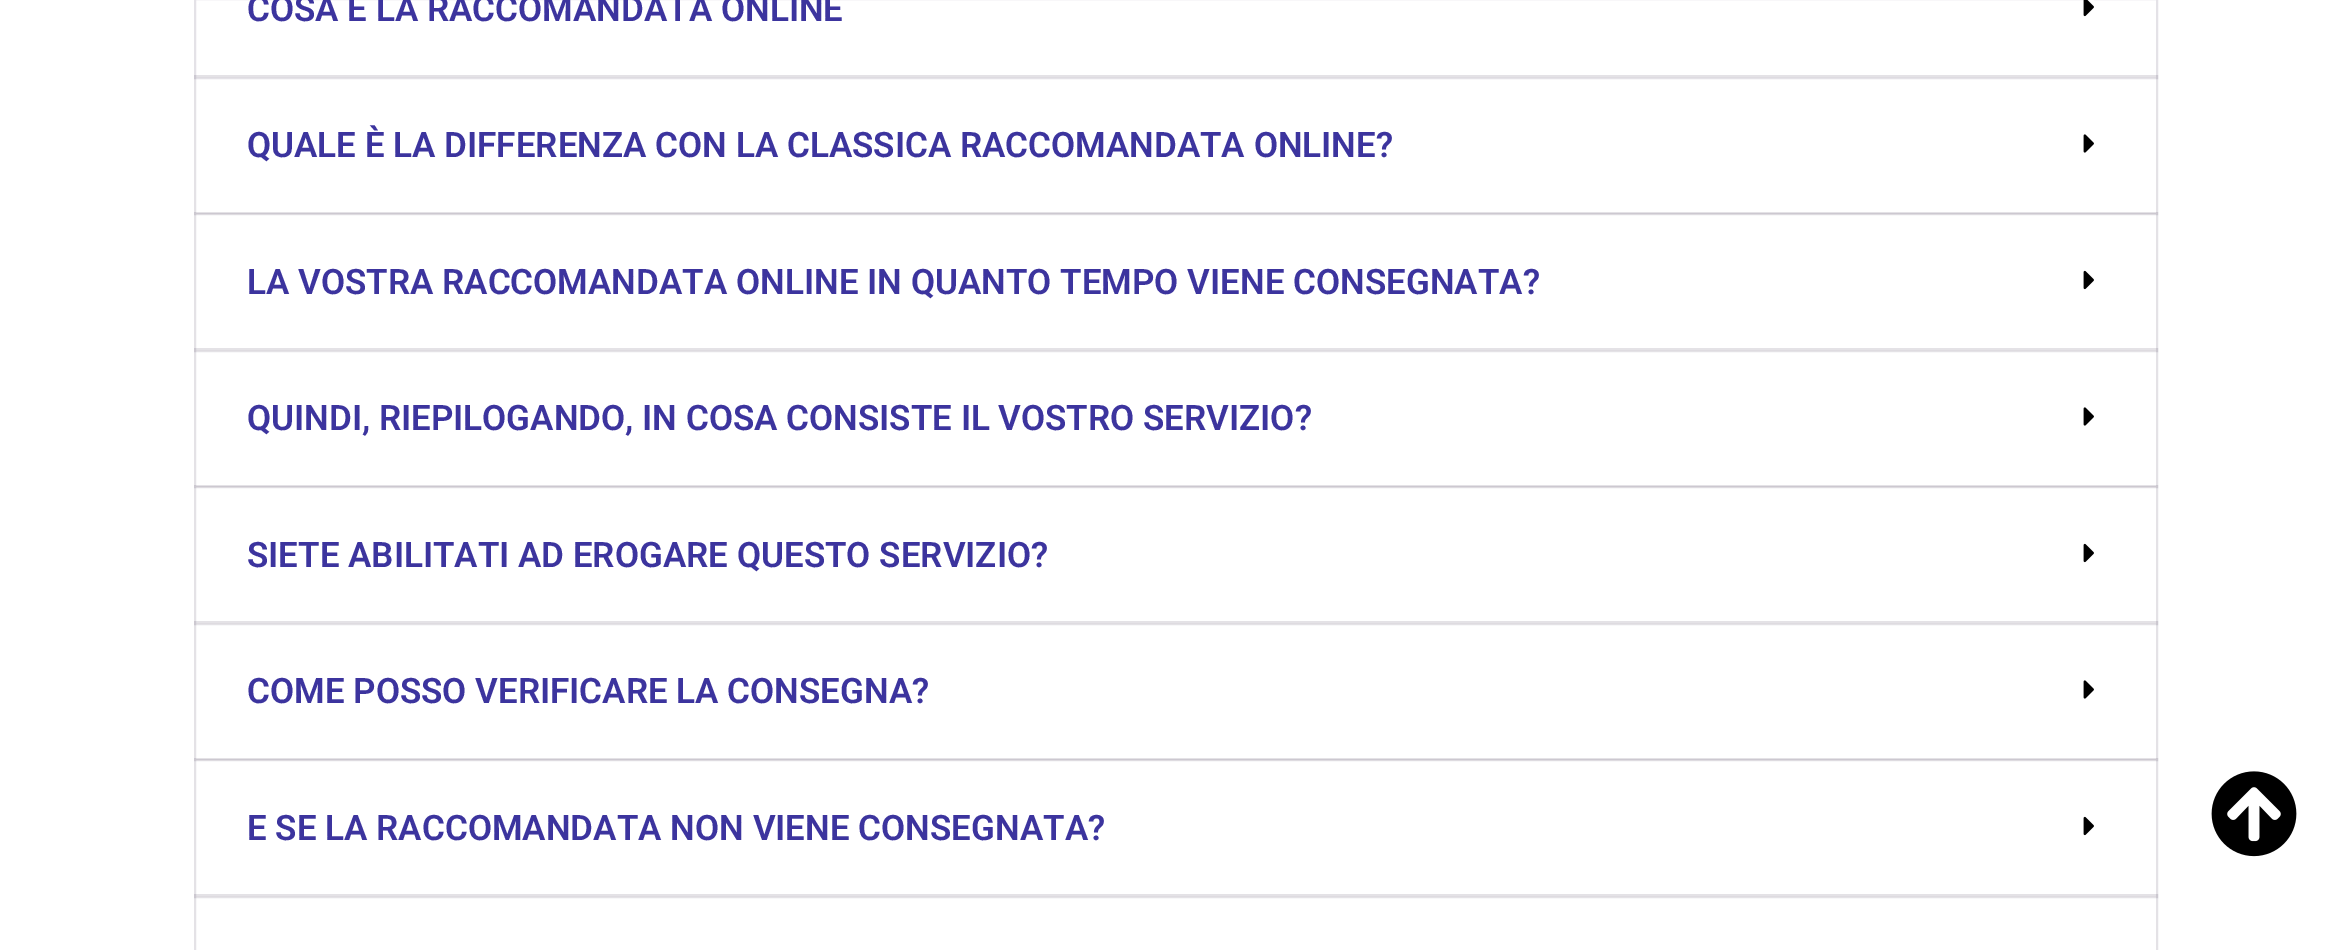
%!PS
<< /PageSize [2352 950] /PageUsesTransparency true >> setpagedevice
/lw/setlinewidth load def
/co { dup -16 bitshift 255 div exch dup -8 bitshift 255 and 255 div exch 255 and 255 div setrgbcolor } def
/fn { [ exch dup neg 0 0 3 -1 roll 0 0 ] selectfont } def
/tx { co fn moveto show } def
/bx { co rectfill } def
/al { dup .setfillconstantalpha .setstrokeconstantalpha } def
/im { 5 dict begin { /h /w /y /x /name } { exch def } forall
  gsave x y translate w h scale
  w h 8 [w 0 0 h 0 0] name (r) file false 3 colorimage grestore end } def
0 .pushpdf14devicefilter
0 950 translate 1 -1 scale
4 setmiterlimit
0 0 2352 950 16#FFFFFF bx
16#E4E2E7 co
2 lw
195 -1 1962 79 rectstroke
(media/1.raw) 2083 0 11 17 im
0.12 al
16#1E1035 co
195 76 1962 138 rectstroke
1 al
(media/2.raw) 2083 134 11 19 im
0.12 al
195 213 1962 138 rectstroke
1 al
(media/3.raw) 2083 270 11 20 im
0.12 al
195 349 1962 138 rectstroke
1 al
(media/2.raw) 2083 407 11 19 im
0.12 al
195 486 1962 138 rectstroke
1 al
(media/3.raw) 2083 543 11 20 im
0.12 al
195 622 1962 138 rectstroke
1 al
(media/2.raw) 2083 680 11 19 im
0.12 al
195 759 1962 138 rectstroke
1 al
(media/3.raw) 2083 816 11 20 im
0.12 al
195 895 1962 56 rectstroke
1 al
(media/4.raw) 2211 771 86 86 im
(COSA È LA RACCOMANDATA ONLINE) 247 21 /Roboto-SemiBold 35 16#3C349E tx
(QUALE È LA DIFFERENZA CON LA CLASSICA RACCOMANDATA ONLINE?) 247 157 /Roboto-SemiBold 35 16#3C349E tx
(LA VOSTRA RACCOMANDATA ONLINE IN QUANTO TEMPO VIENE CONSEGNATA?) 247 294 /Roboto-SemiBold 35 16#3C349E tx
(QUINDI, RIEPILOGANDO, IN COSA CONSISTE IL VOSTRO SERVIZIO?) 247 430 /Roboto-SemiBold 35 16#3C349E tx
(SIETE ABILITATI AD EROGARE QUESTO SERVIZIO?) 247 567 /Roboto-SemiBold 35 16#3C349E tx
(COME POSSO VERIFICARE LA CONSEGNA?) 247 703 /Roboto-SemiBold 35 16#3C349E tx
(E SE LA RACCOMANDATA NON VIENE CONSEGNATA?) 247 840 /Roboto-SemiBold 35 16#3C349E tx
.poppdf14devicefilter showpage
